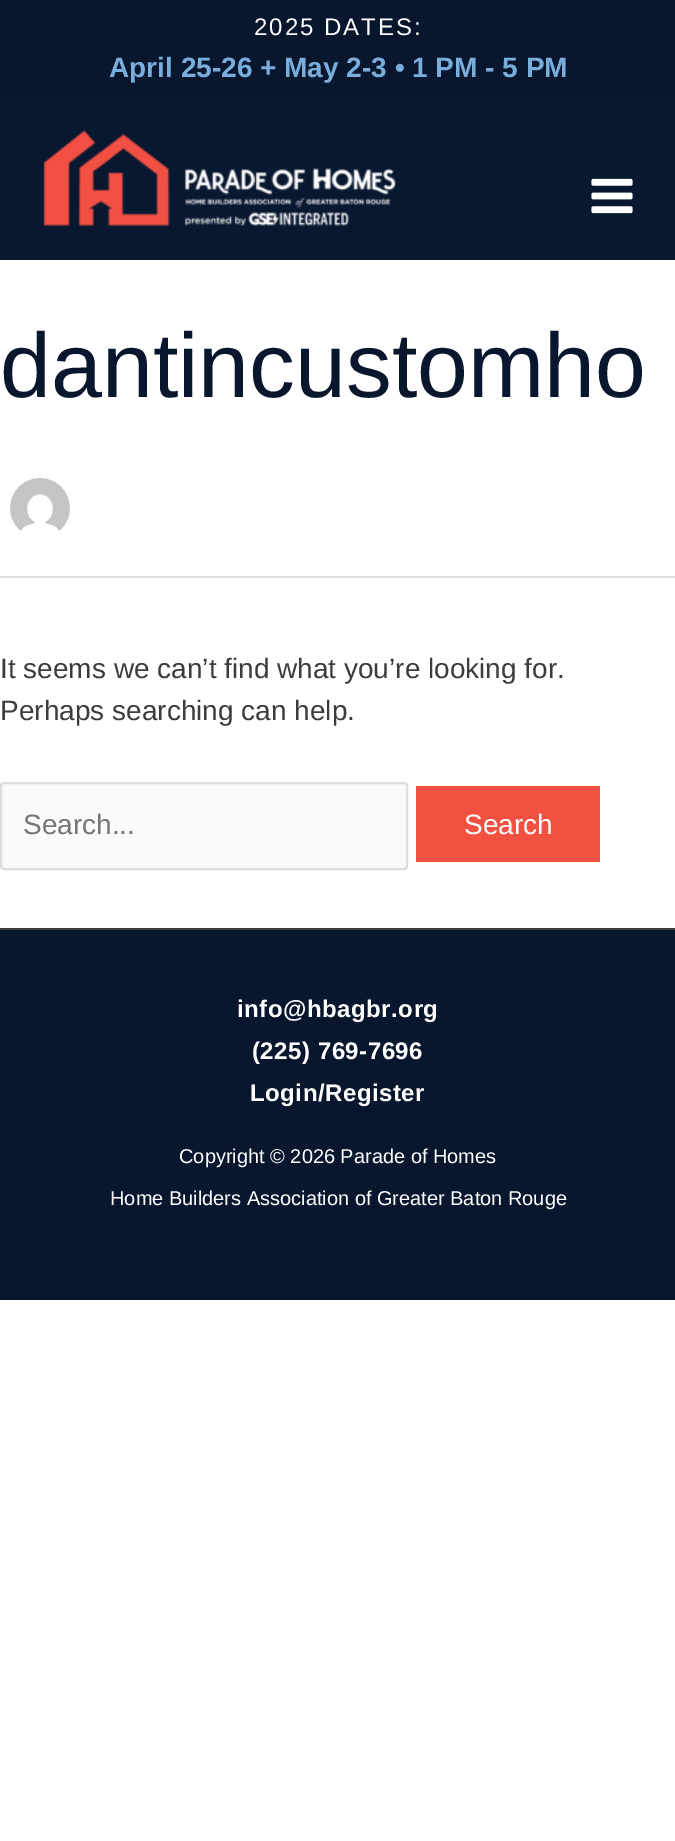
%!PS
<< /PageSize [675 1841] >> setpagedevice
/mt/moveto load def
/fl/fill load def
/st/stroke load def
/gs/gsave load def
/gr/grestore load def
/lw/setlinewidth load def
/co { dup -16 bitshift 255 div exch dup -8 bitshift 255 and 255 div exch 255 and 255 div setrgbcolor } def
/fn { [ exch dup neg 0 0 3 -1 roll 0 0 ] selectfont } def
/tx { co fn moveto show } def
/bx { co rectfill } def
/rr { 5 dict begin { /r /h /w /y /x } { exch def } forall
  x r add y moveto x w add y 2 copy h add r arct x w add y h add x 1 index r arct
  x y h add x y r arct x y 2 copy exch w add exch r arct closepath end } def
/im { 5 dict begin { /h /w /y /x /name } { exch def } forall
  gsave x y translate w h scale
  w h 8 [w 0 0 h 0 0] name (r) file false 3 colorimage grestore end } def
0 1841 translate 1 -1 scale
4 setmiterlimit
0 0 675 1841 16#FFFFFF bx
0 0 675 100 16#08172E bx
0 100 675 160 16#081830 bx
(media/1.raw) 43 130 354 97 im
(media/2.raw) 591 178 42 36 im
0 576 675 2 16#DDDDDD bx
(media/3.raw) 10 478 60 53 im
16#FAFAFA co
1 783 406 86 3 rr gs fl gr
16#DDDDDD co
2 lw
st
416 786 184 76 16#F05141 bx
0 930 675 370 16#08172E bx
0 928 675 2 16#3C3C3C bx
/LiberationSans-Regular 24 fn
16#FFFFFF co
254 35 mt 2 0 (2025 DATES:) ashow
(April 25-26 + May 2-3 • 1 PM - 5 PM) 109 77 /LiberationSans-Bold 28 16#79ADDC tx
(dantincustomho) 0 397 /LiberationSans-Regular 91.5 16#08172E tx
(It seems we can’t find what you’re looking for.) 0 678 /LiberationSans-Regular 28 16#3C3C3C tx
(Perhaps searching can help.) 0 720 /LiberationSans-Regular 28 16#3C3C3C tx
(Search...) 23 834 /LiberationSans-Regular 28 16#757575 tx
(Search) 464 834 /LiberationSans-Regular 28 16#FFFFFF tx
/LiberationSans-Bold 24 fn
237 1017 mt .5 0 (info@hbagbr.org) ashow
252 1059 mt .5 0 (\(225\) 769-7696) ashow
250 1101 mt .5 0 (Login/Register) ashow
(Copyright © 2026 Parade of Homes) 179 1163 /LiberationSans-Regular 20 16#FFFFFF tx
(Home Builders Association of Greater Baton Rouge) 110 1205 /LiberationSans-Regular 20 16#FFFFFF tx
showpage
